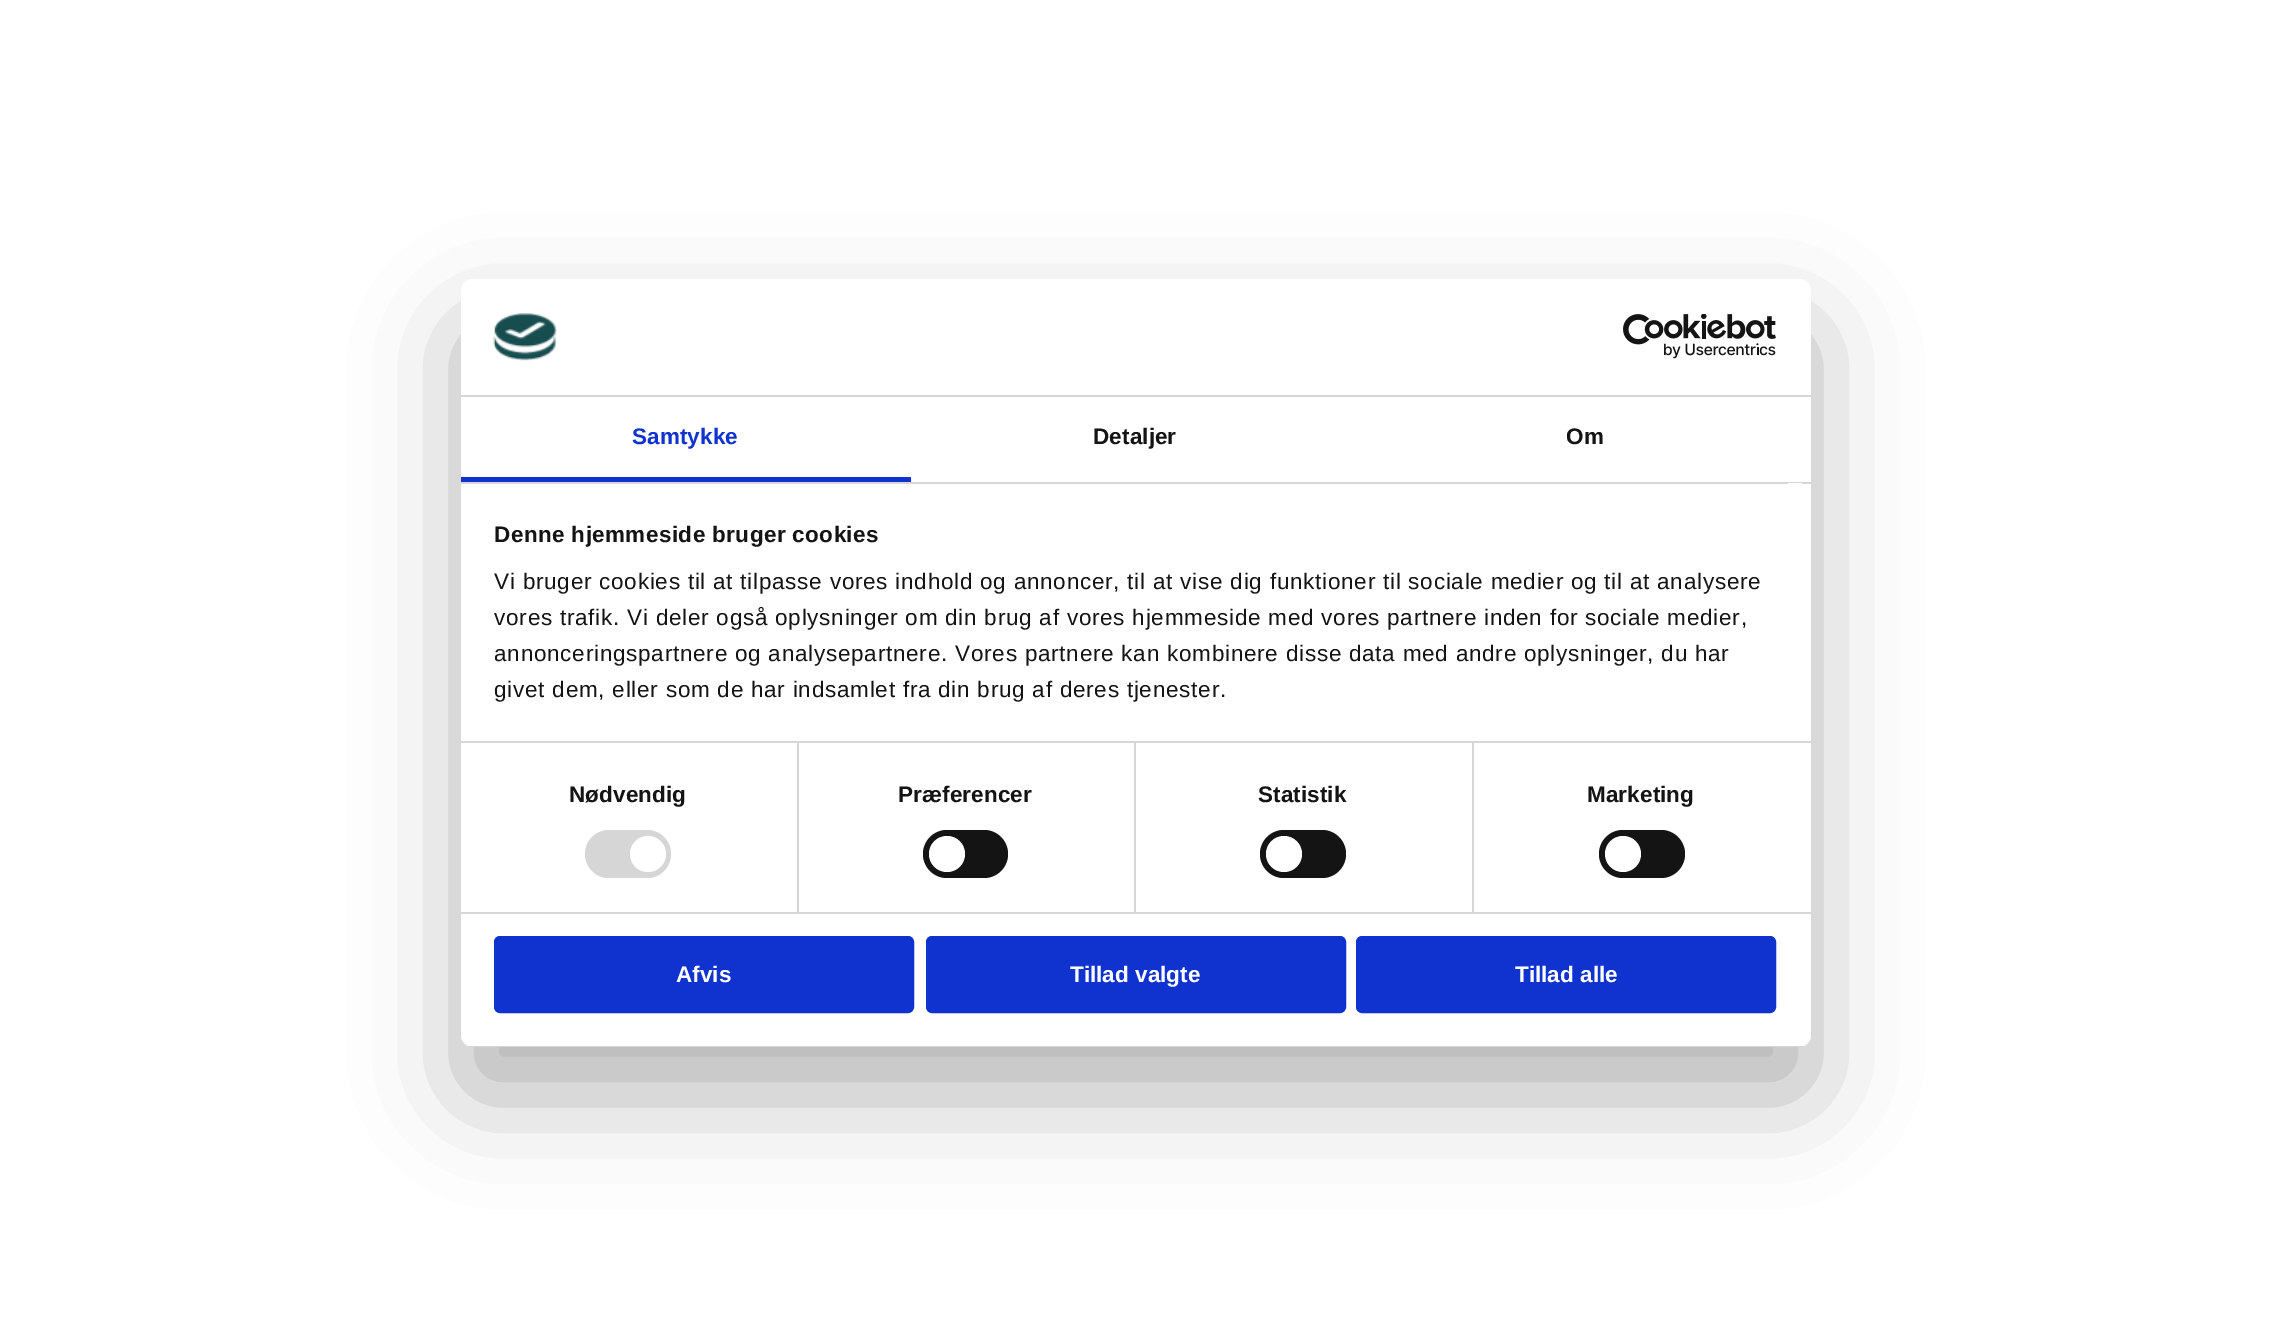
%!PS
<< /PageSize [2269 1325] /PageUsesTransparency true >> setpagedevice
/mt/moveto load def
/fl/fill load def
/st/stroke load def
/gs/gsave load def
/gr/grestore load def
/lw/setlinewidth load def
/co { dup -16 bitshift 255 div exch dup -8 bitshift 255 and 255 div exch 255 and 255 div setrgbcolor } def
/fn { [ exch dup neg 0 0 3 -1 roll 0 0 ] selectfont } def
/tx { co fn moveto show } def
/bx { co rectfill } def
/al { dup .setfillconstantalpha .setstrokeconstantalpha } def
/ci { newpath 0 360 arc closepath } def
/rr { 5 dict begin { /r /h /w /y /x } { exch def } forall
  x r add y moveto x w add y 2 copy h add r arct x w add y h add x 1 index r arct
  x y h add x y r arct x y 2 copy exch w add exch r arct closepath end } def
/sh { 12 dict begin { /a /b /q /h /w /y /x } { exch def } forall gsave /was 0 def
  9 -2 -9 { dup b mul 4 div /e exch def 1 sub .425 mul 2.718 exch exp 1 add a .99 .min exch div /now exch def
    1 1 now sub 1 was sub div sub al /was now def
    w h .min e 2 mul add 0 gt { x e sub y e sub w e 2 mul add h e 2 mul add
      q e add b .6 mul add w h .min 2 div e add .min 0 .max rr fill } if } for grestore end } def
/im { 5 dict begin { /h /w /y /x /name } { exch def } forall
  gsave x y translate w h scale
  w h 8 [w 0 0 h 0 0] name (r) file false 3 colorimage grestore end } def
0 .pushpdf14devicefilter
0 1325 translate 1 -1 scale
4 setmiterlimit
0 0 2269 1325 16#FFFFFF bx
16#000000 co
461 327 1350 768 12 51 .3 sh
16#FFFFFF co
461 279 1350 768 12 rr fl
461 395 1350 2 16#D6D6D6 bx
(media/1.raw) 493 313 64 48 im
(media/2.raw) 1623 314 153 45 im
461 482 1350 2 16#D6D6D6 bx
461 477 450 5 16#1032CF bx
461 741 1350 2 16#D6D6D6 bx
1788 483 14 1 16#FFFFFF bx
461 912 1350 2 16#D6D6D6 bx
797 743 2 169 16#D6D6D6 bx
585 830 86 48 24 rr fl
16#FFFFFF co
648 854 18 ci fl
1134 743 2 169 16#D6D6D6 bx
16#141414 co
923 830 85 48 24 rr fl
16#FFFFFF co
947 854 18 ci fl
1472 743 2 169 16#D6D6D6 bx
16#141414 co
1260 830 86 48 24 rr fl
16#FFFFFF co
1284 854 18 ci fl
16#141414 co
1599 830 86 48 24 rr fl
16#FFFFFF co
1623 854 18 ci fl
gs
461 279 1350 768 12 rr clip newpath
461 1046 1350 1 16#D6D6D6 bx
gr
16#1032CF co
495.5 937.5 417 74 4.5 rr gs fl gr
3 lw
st
927.5 937.5 417 74 4.5 rr gs fl gr
st
1357.5 937.5 417 74 4.5 rr gs fl gr
st
/LiberationSans-Bold 22.5 fn
632 444 mt .1 0 (Samtykke) ashow
16#141414 co
1093 444 mt .1 0 (Detaljer) ashow
1566 444 mt .1 0 (Om) ashow
494 542 mt .4 0 (Denne hjemmeside bruger cookies) ashow
/LiberationSans-Regular 22.5 fn
494 589 mt .75 0 (Vi bruger cookies til at tilpasse vores indhold og annoncer, til at vise dig funktioner til sociale medier og til at analysere) ashow
494 625 mt .75 0 (vores trafik. Vi deler også oplysninger om din brug af vores hjemmeside med vores partnere inden for sociale medier,) ashow
494 661 mt .75 0 (annonceringspartnere og analysepartnere. Vores partnere kan kombinere disse data med andre oplysninger, du har) ashow
494 697 mt .75 0 (givet dem, eller som de har indsamlet fra din brug af deres tjenester.) ashow
/LiberationSans-Bold 22.5 fn
569 802 mt .1 0 (Nødvendig) ashow
898 802 mt .1 0 (Præferencer) ashow
1258 802 mt .1 0 (Statistik) ashow
1587 802 mt .1 0 (Marketing) ashow
(Afvis) 676 982 /LiberationSans-Bold 22.5 16#FFFFFF tx
(Tillad valgte) 1070 982 /LiberationSans-Bold 22.5 16#FFFFFF tx
(Tillad alle) 1515 982 /LiberationSans-Bold 22.5 16#FFFFFF tx
.poppdf14devicefilter showpage
